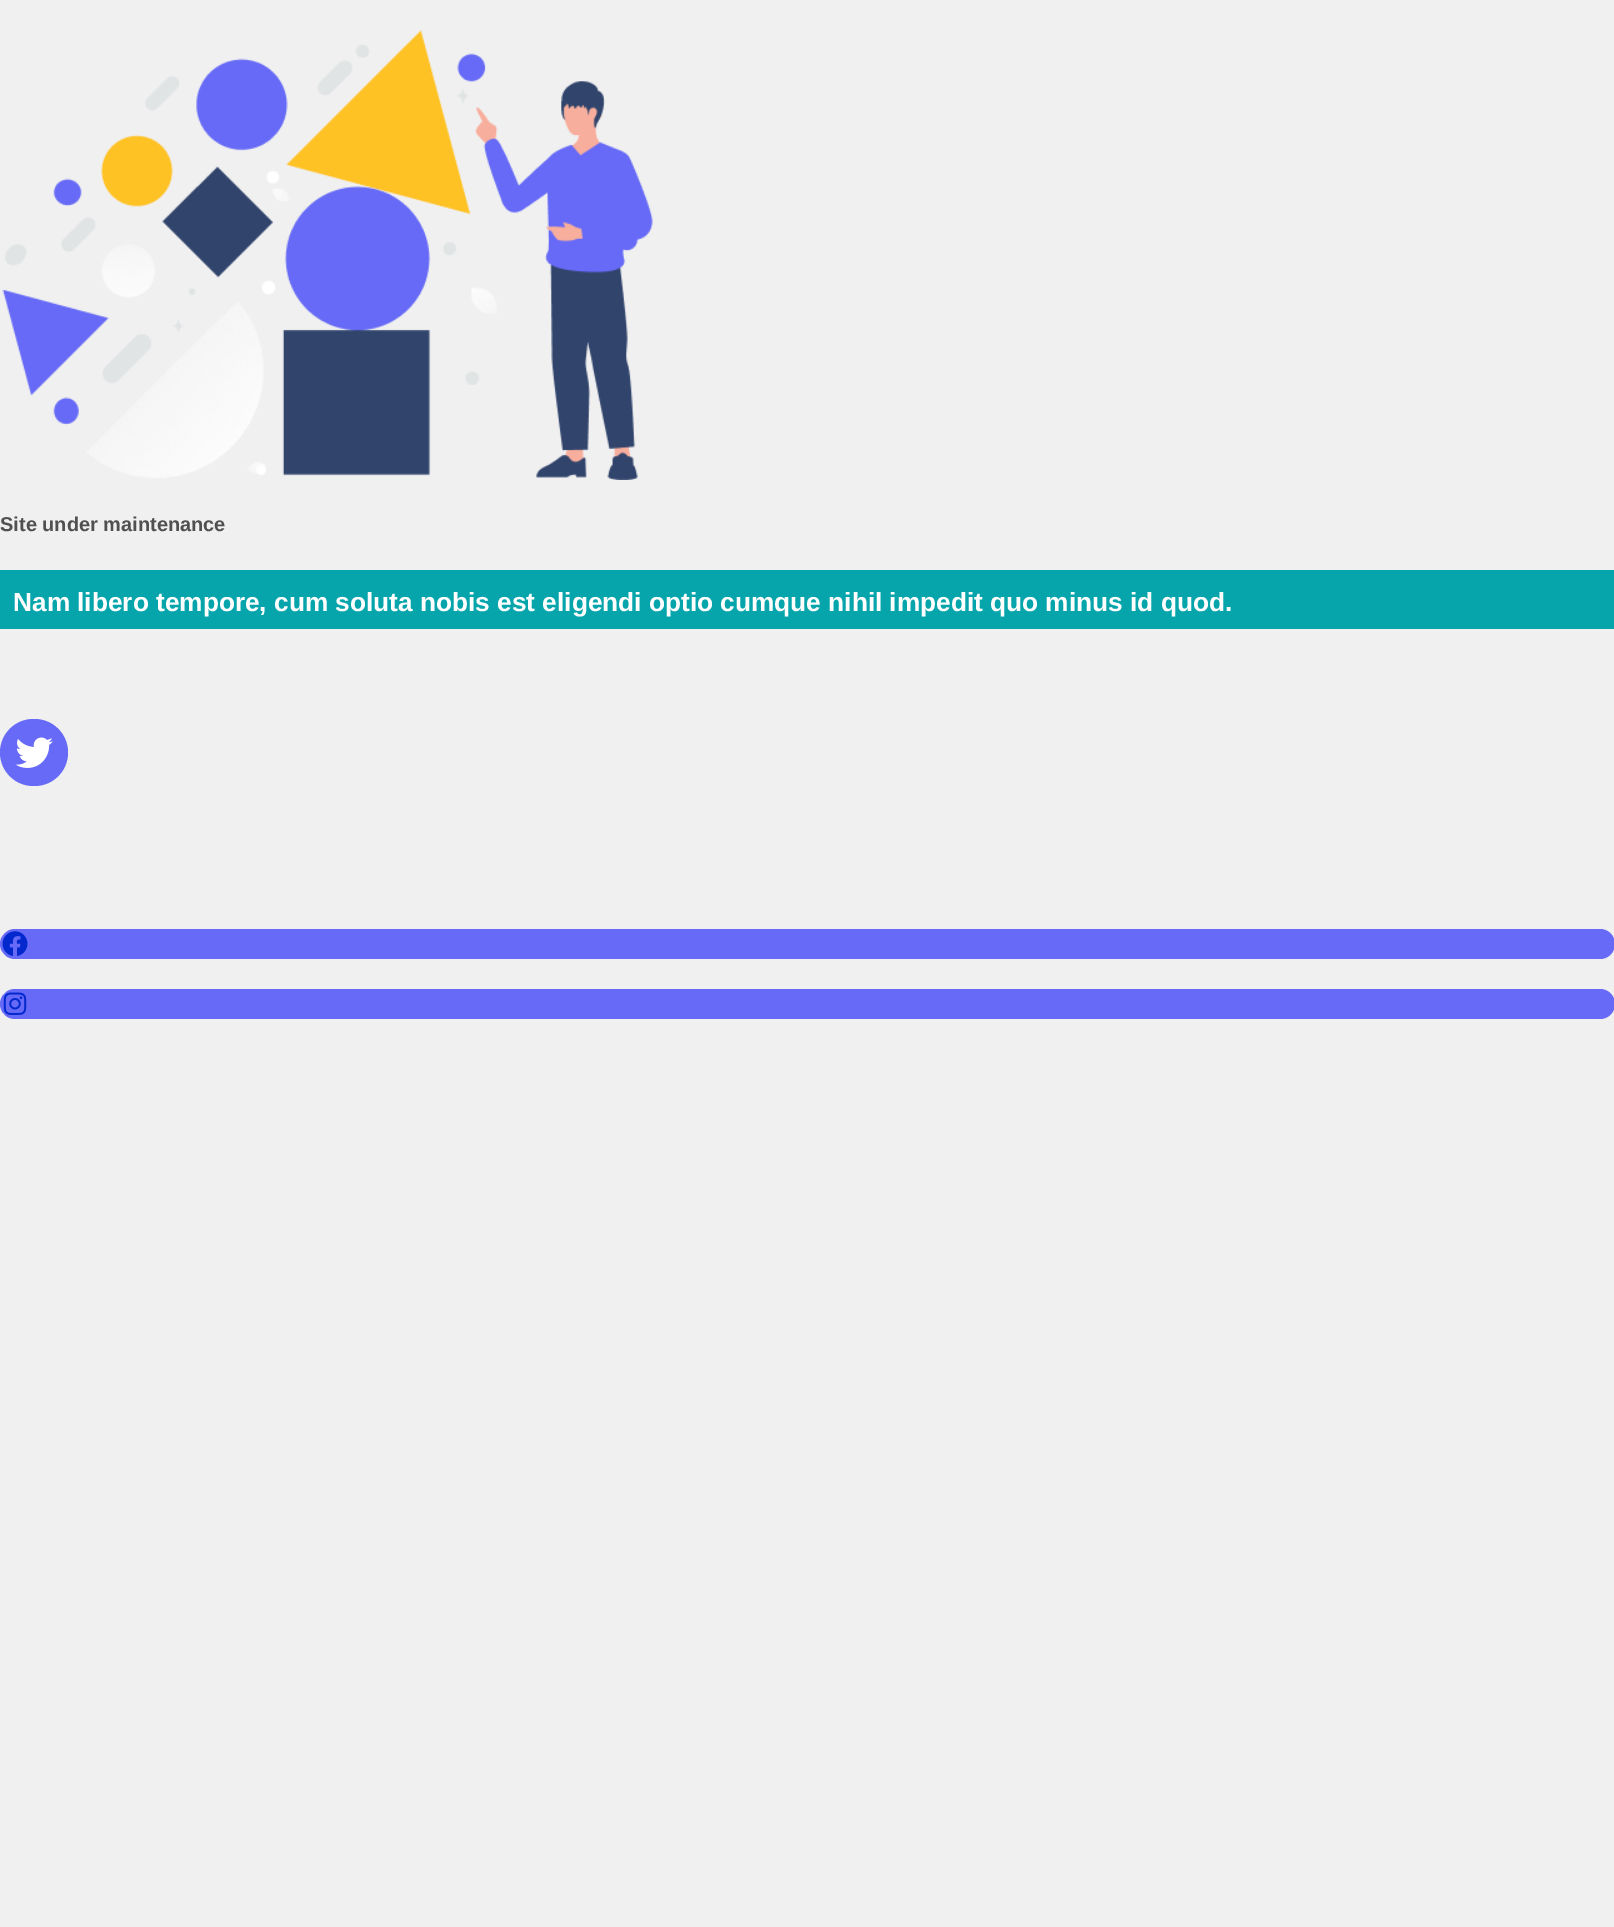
%!PS
<< /PageSize [1614 1927] >> setpagedevice
/fl/fill load def
/co { dup -16 bitshift 255 div exch dup -8 bitshift 255 and 255 div exch 255 and 255 div setrgbcolor } def
/fn { [ exch dup neg 0 0 3 -1 roll 0 0 ] selectfont } def
/tx { co fn moveto show } def
/bx { co rectfill } def
/rr { 5 dict begin { /r /h /w /y /x } { exch def } forall
  x r add y moveto x w add y 2 copy h add r arct x w add y h add x 1 index r arct
  x y h add x y r arct x y 2 copy exch w add exch r arct closepath end } def
/im { 5 dict begin { /h /w /y /x /name } { exch def } forall
  gsave x y translate w h scale
  w h 8 [w 0 0 h 0 0] name (r) file false 3 colorimage grestore end } def
0 1927 translate 1 -1 scale
4 setmiterlimit
0 0 1614 1927 16#F0F0F0 bx
(media/1.raw) 2 30 651 450 im
0 570 1614 59 16#05A5AB bx
16#666AF6 co
0 719 68 67 33.5 rr fl
(media/2.raw) 15 737 38 31 im
0 929 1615 30 15 rr fl
(media/3.raw) 2 931 26 25 im
0 989 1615 30 15 rr fl
(media/4.raw) 3 992 24 23 im
(Site under maintenance) 0 531 /LiberationSans-Bold 20 16#505050 tx
(Nam libero tempore, cum soluta nobis est eligendi optio cumque nihil impedit quo minus id quod.) 13 611 /LiberationSans-Bold 26.25 16#FFFFFF tx
showpage
